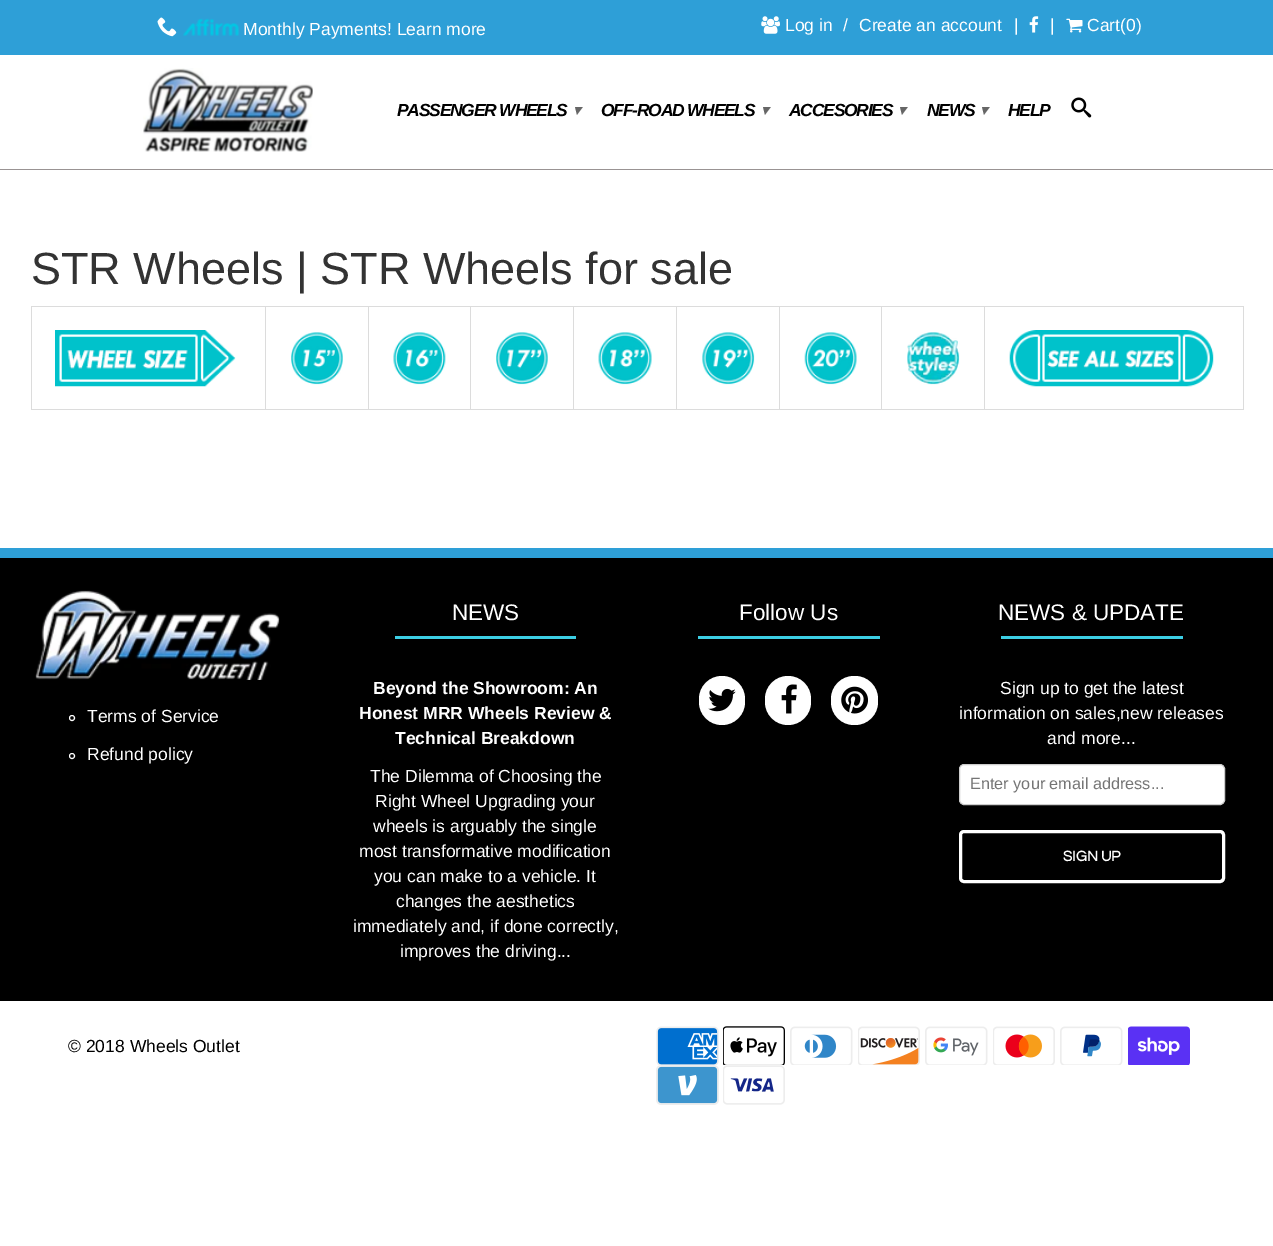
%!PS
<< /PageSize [1273 1246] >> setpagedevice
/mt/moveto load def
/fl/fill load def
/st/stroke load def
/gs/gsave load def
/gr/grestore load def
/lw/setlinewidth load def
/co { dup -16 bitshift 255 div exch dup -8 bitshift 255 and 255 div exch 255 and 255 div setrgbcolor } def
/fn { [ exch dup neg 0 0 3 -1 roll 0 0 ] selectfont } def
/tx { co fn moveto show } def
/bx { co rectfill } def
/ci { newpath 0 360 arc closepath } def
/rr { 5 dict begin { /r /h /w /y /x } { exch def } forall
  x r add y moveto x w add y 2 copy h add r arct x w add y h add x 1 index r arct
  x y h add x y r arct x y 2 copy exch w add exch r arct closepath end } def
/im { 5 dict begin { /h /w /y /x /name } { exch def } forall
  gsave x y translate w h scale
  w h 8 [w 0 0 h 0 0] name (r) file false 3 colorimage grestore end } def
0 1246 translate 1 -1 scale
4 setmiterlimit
0 0 1273 1246 16#FFFFFF bx
0 169 1273 1 16#999393 bx
0 0 1273 55 16#2E9FD7 bx
(media/1.raw) 157 17 20 20 im
(media/2.raw) 183 18 56 18 im
(media/3.raw) 761 16 19 18 im
(media/4.raw) 1029 16 10 17 im
(media/5.raw) 1066 18 17 15 im
(media/6.raw) 143 68 170 84 im
(media/7.raw) 1071 97 21 21 im
31 306 1213 1 16#DCDCDC bx
31 409 1213 1 16#DCDCDC bx
265 306 1 104 16#DCDCDC bx
31 306 1 104 16#DCDCDC bx
(media/8.raw) 55 330 181 57 im
368 306 1 104 16#DCDCDC bx
(media/9.raw) 291 332 52 53 im
470 306 1 104 16#DCDCDC bx
(media/10.raw) 393 332 53 53 im
573 306 1 104 16#DCDCDC bx
(media/11.raw) 496 332 52 53 im
676 306 1 104 16#DCDCDC bx
(media/12.raw) 598 332 54 53 im
779 306 1 104 16#DCDCDC bx
(media/13.raw) 702 332 53 53 im
881 306 1 104 16#DCDCDC bx
(media/14.raw) 804 332 53 53 im
984 306 1 104 16#DCDCDC bx
(media/15.raw) 907 332 53 53 im
1243 306 1 104 16#DCDCDC bx
(media/16.raw) 1009 330 205 57 im
0 558 1273 443 16#000000 bx
0 548 1273 10 16#2E9FD7 bx
(media/17.raw) 35 590 245 90 im
16#FFFFFF co
72 718 2.5 ci st
72 756 2.5 ci st
395 636 181 3 16#3CCEE4 bx
698 636 182 3 16#3CCEE4 bx
16#FFFFFF co
699 676 46 49 23 rr fl
(media/18.raw) 708 688 28 24 im
765 676 46 49 23 rr fl
(media/19.raw) 781 684 16 30 im
831 676 47 49 23 rr fl
(media/20.raw) 841 686 27 28 im
1001 636 182 3 16#3CCEE4 bx
16#FFFFFF co
959.5 764.5 265 40 4.5 rr gs fl gr
16#CCCCCC co
st
16#FFFFFF co
3 lw
960.5 831.5 263 50 3.5 rr st
(media/21.raw) 656 1026 63 39 im
(media/22.raw) 723 1026 62 39 im
(media/23.raw) 790 1026 63 39 im
(media/24.raw) 858 1026 62 39 im
(media/25.raw) 925 1026 63 39 im
(media/26.raw) 993 1026 62 39 im
(media/27.raw) 1060 1026 63 39 im
(media/28.raw) 1128 1026 62 39 im
(media/29.raw) 656 1065 63 40 im
(media/30.raw) 723 1065 62 40 im
(Monthly Payments! Learn more) 243 35 /LiberationSans-Regular 17.5 16#FFFFFF tx
(Log in) 785 31 /LiberationSans-Regular 17.5 16#FFFFFF tx
(/) 843 31 /LiberationSans-Regular 17.5 16#FFFFFF tx
(Create an account) 859 31 /LiberationSans-Regular 17.5 16#FFFFFF tx
(|) 1014 31 /LiberationSans-Regular 17.5 16#FFFFFF tx
(|) 1050 31 /LiberationSans-Regular 17.5 16#FFFFFF tx
(Cart\(0\)) 1087 31 /LiberationSans-Regular 17.5 16#FFFFFF tx
/LiberationSans-BoldItalic 17.5 fn
16#000000 co
397 116 mt -1.25 0 (PASSENGER WHEELS) ashow
/DejaVuSans-BoldItalic 15 fn
16#666666 co
573 115 mt -1.25 0 (▾) ashow
/LiberationSans-BoldItalic 17.5 fn
16#000000 co
601 116 mt -1.25 0 (OFF-ROAD WHEELS) ashow
/DejaVuSans-BoldItalic 15 fn
16#666666 co
761 115 mt -1.25 0 (▾) ashow
/LiberationSans-BoldItalic 17.5 fn
16#000000 co
789 116 mt -1.25 0 (ACCESORIES) ashow
/DejaVuSans-BoldItalic 15 fn
16#666666 co
898 115 mt -1.25 0 (▾) ashow
/LiberationSans-BoldItalic 17.5 fn
16#000000 co
927 116 mt -1.25 0 (NEWS) ashow
/DejaVuSans-BoldItalic 15 fn
16#666666 co
980 115 mt -1.25 0 (▾) ashow
/LiberationSans-BoldItalic 17.5 fn
16#000000 co
1008 116 mt -1.25 0 (HELP) ashow
(STR Wheels | STR Wheels for sale) 31 284 /LiberationSans-Regular 45 16#333333 tx
(Terms of Service) 87 722 /LiberationSans-Regular 17.5 16#FFFFFF tx
(Refund policy) 87 760 /LiberationSans-Regular 17.5 16#FFFFFF tx
(NEWS) 452 620 /LiberationSans-Regular 22.5 16#FFFFFF tx
(Beyond the Showroom: An) 373 694 /LiberationSans-Bold 17.5 16#FFFFFF tx
(Honest MRR Wheels Review &) 359 719 /LiberationSans-Bold 17.5 16#FFFFFF tx
(Technical Breakdown) 395 744 /LiberationSans-Bold 17.5 16#FFFFFF tx
(The Dilemma of Choosing the) 370 782 /LiberationSans-Regular 17.5 16#FFFFFF tx
(Right Wheel Upgrading your) 375 807 /LiberationSans-Regular 17.5 16#FFFFFF tx
(wheels is arguably the single) 373 832 /LiberationSans-Regular 17.5 16#FFFFFF tx
(most transformative modification) 359 857 /LiberationSans-Regular 17.5 16#FFFFFF tx
(you can make to a vehicle. It) 374 882 /LiberationSans-Regular 17.5 16#FFFFFF tx
(changes the aesthetics) 396 907 /LiberationSans-Regular 17.5 16#FFFFFF tx
(immediately and, if done correctly,) 353 932 /LiberationSans-Regular 17.5 16#FFFFFF tx
(improves the driving...) 400 957 /LiberationSans-Regular 17.5 16#FFFFFF tx
(Follow Us) 739 620 /LiberationSans-Regular 22.5 16#FFFFFF tx
(NEWS & UPDATE) 998 620 /LiberationSans-Regular 22.5 16#FFFFFF tx
(Sign up to get the latest) 1000 694 /LiberationSans-Regular 17.5 16#FFFFFF tx
(information on sales,new releases) 959 719 /LiberationSans-Regular 17.5 16#FFFFFF tx
(and more...) 1047 744 /LiberationSans-Regular 17.5 16#FFFFFF tx
(Enter your email address...) 970 789 /LiberationSans-Regular 16.25 16#757575 tx
(SIGN UP) 1063 861 /Questrial-Bold 15 16#FFFFFF tx
(© 2018 Wheels Outlet) 68 1052 /LiberationSans-Regular 17.5 16#000000 tx
showpage
